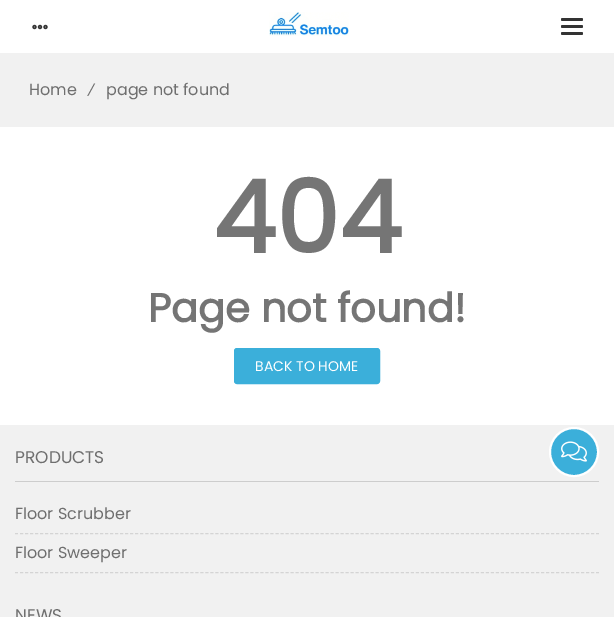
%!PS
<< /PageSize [614 617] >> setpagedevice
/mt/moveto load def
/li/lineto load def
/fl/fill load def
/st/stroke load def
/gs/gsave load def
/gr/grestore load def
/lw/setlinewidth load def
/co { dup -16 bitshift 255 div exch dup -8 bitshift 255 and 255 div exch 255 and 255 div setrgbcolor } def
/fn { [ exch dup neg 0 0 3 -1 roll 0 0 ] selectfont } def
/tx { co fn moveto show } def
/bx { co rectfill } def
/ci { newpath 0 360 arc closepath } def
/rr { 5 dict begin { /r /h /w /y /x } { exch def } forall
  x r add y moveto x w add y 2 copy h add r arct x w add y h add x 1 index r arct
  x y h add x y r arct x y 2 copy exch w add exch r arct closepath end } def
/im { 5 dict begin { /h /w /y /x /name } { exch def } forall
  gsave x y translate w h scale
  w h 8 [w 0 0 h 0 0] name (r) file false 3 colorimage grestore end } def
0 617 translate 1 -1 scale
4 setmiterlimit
0 0 614 617 16#FFFFFF bx
(media/1.raw) 32 24 16 6 im
(media/2.raw) 269 12 80 24 im
16#333333 co
561 25 22 3 1.5 rr fl
561 18 22 3 1.5 rr fl
561 32 22 3 1.5 rr fl
0 53 614 74 16#F1F1F1 bx
16#3BAFDA co
234.5 348.5 145 35 2.5 rr gs fl gr
st
0 425 614 192 16#F1F1F1 bx
15 481 584 1 16#CDCDCD bx
16#D4D4D4 co
[3 2.01] 0 setdash
15 533.5 mt 599 533.5 li st
15 572.5 mt 599 572.5 li st
16#3BAFDA co
574 452 24 ci gs fl gr
16#FFFFFF co
2 lw
[] 0 setdash
st
(media/3.raw) 561 441 26 21 im
(Home) 29 95 /Poppins-Regular 16 16#6F6F6F tx
(/) 88 95 /Roboto-Italic 16 16#6F6F6F tx
(page not found) 106 95 /Poppins-Regular 16 16#6F6F6F tx
(404) 213 253 /Poppins-Bold 100 16#757575 tx
(Page not found!) 148 322 /Poppins-Bold 40 16#757575 tx
(BACK TO HOME) 255 371 /Poppins-Regular 14 16#FFFFFF tx
(PRODUCTS) 15 463 /Poppins-Regular 17 16#6F6F6F tx
(Floor Scrubber) 15 519 /Poppins-Regular 16 16#6F6F6F tx
(Floor Sweeper) 15 558 /Poppins-Regular 16 16#6F6F6F tx
(NEWS) 15 621 /Poppins-Regular 17 16#6F6F6F tx
showpage
